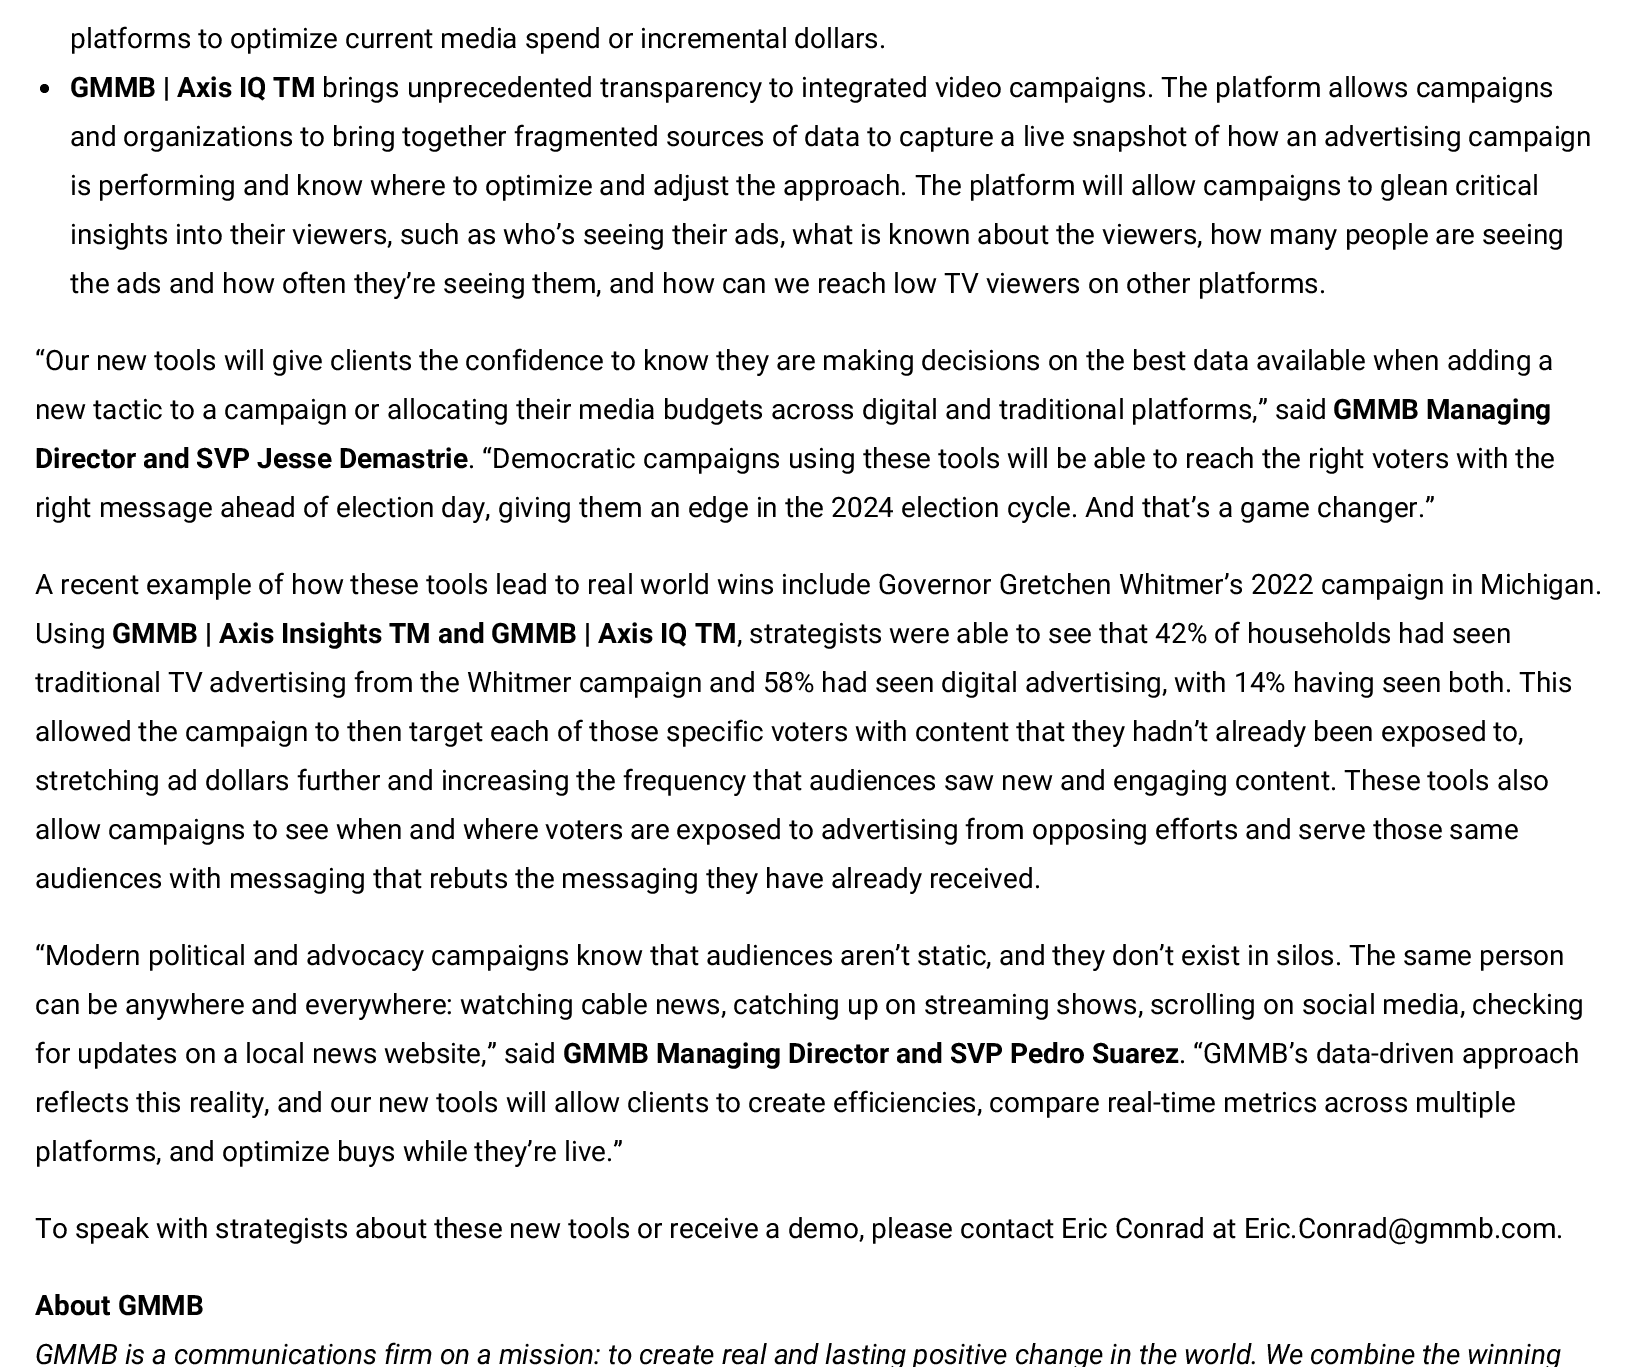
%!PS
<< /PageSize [1636 1367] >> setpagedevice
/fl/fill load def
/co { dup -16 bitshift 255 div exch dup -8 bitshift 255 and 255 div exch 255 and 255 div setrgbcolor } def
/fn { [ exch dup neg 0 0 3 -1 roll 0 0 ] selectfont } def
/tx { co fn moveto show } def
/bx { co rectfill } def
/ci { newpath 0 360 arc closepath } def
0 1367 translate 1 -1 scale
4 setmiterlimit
0 0 1636 1367 16#FFFFFF bx
16#000000 co
44.5 88.5 4.5 ci fl
(platforms to optimize current media spend or incremental dollars.) 70 48 /Roboto-Regular 28 16#000000 tx
(GMMB | Axis IQ TM) 70 97 /Roboto-Bold 28 16#000000 tx
(brings unprecedented transparency to integrated video campaigns. The platform allows campaigns) 322 97 /Roboto-Regular 28 16#000000 tx
(and organizations to bring together fragmented sources of data to capture a live snapshot of how an advertising campaign) 70 146 /Roboto-Regular 28 16#000000 tx
(is performing and know where to optimize and adjust the approach. The platform will allow campaigns to glean critical) 70 195 /Roboto-Regular 28 16#000000 tx
(insights into their viewers, such as who’s seeing their ads, what is known about the viewers, how many people are seeing) 70 244 /Roboto-Regular 28 16#000000 tx
(the ads and how often they’re seeing them, and how can we reach low TV viewers on other platforms.) 70 293 /Roboto-Regular 28 16#000000 tx
(“Our new tools will give clients the confidence to know they are making decisions on the best data available when adding a) 35 370 /Roboto-Regular 28 16#000000 tx
(new tactic to a campaign or allocating their media budgets across digital and traditional platforms,” said) 35 419 /Roboto-Regular 28 16#000000 tx
(GMMB Managing) 1333 419 /Roboto-Bold 28 16#000000 tx
(Director and SVP Jesse Demastrie) 35 468 /Roboto-Bold 28 16#000000 tx
(. “Democratic campaigns using these tools will be able to reach the right voters with the) 468 468 /Roboto-Regular 28 16#000000 tx
(right message ahead of election day, giving them an edge in the 2024 election cycle. And that’s a game changer.”) 35 517 /Roboto-Regular 28 16#000000 tx
(A recent example of how these tools lead to real world wins include Governor Gretchen Whitmer’s 2022 campaign in Michigan.) 35 594 /Roboto-Regular 28 16#000000 tx
(Using) 35 643 /Roboto-Regular 28 16#000000 tx
(GMMB | Axis Insights TM and GMMB | Axis IQ TM) 112 643 /Roboto-Bold 28 16#000000 tx
(, strategists were able to see that 42% of households had seen) 737 643 /Roboto-Regular 28 16#000000 tx
(traditional TV advertising from the Whitmer campaign and 58% had seen digital advertising, with 14% having seen both. This) 35 692 /Roboto-Regular 28 16#000000 tx
(allowed the campaign to then target each of those specific voters with content that they hadn’t already been exposed to,) 35 741 /Roboto-Regular 28 16#000000 tx
(stretching ad dollars further and increasing the frequency that audiences saw new and engaging content. These tools also) 35 790 /Roboto-Regular 28 16#000000 tx
(allow campaigns to see when and where voters are exposed to advertising from opposing efforts and serve those same) 35 839 /Roboto-Regular 28 16#000000 tx
(audiences with messaging that rebuts the messaging they have already received.) 35 888 /Roboto-Regular 28 16#000000 tx
(“Modern political and advocacy campaigns know that audiences aren’t static, and they don’t exist in silos. The same person) 35 965 /Roboto-Regular 28 16#000000 tx
(can be anywhere and everywhere: watching cable news, catching up on streaming shows, scrolling on social media, checking) 35 1014 /Roboto-Regular 28 16#000000 tx
(for updates on a local news website,” said) 35 1063 /Roboto-Regular 28 16#000000 tx
(GMMB Managing Director and SVP Pedro Suarez) 563 1063 /Roboto-Bold 28 16#000000 tx
(. “GMMB’s data-driven approach) 1179 1063 /Roboto-Regular 28 16#000000 tx
(reflects this reality, and our new tools will allow clients to create efficiencies, compare real-time metrics across multiple) 35 1112 /Roboto-Regular 28 16#000000 tx
(platforms, and optimize buys while they’re live.”) 35 1161 /Roboto-Regular 28 16#000000 tx
(To speak with strategists about these new tools or receive a demo, please contact Eric Conrad at Eric.Conrad@gmmb.com.) 35 1238 /Roboto-Regular 28 16#000000 tx
(About GMMB) 35 1315 /Roboto-Bold 28 16#000000 tx
(GMMB is a communications firm on a mission: to create real and lasting positive change in the world. We combine the winning) 35 1364 /Roboto-Italic 28 16#000000 tx
showpage
